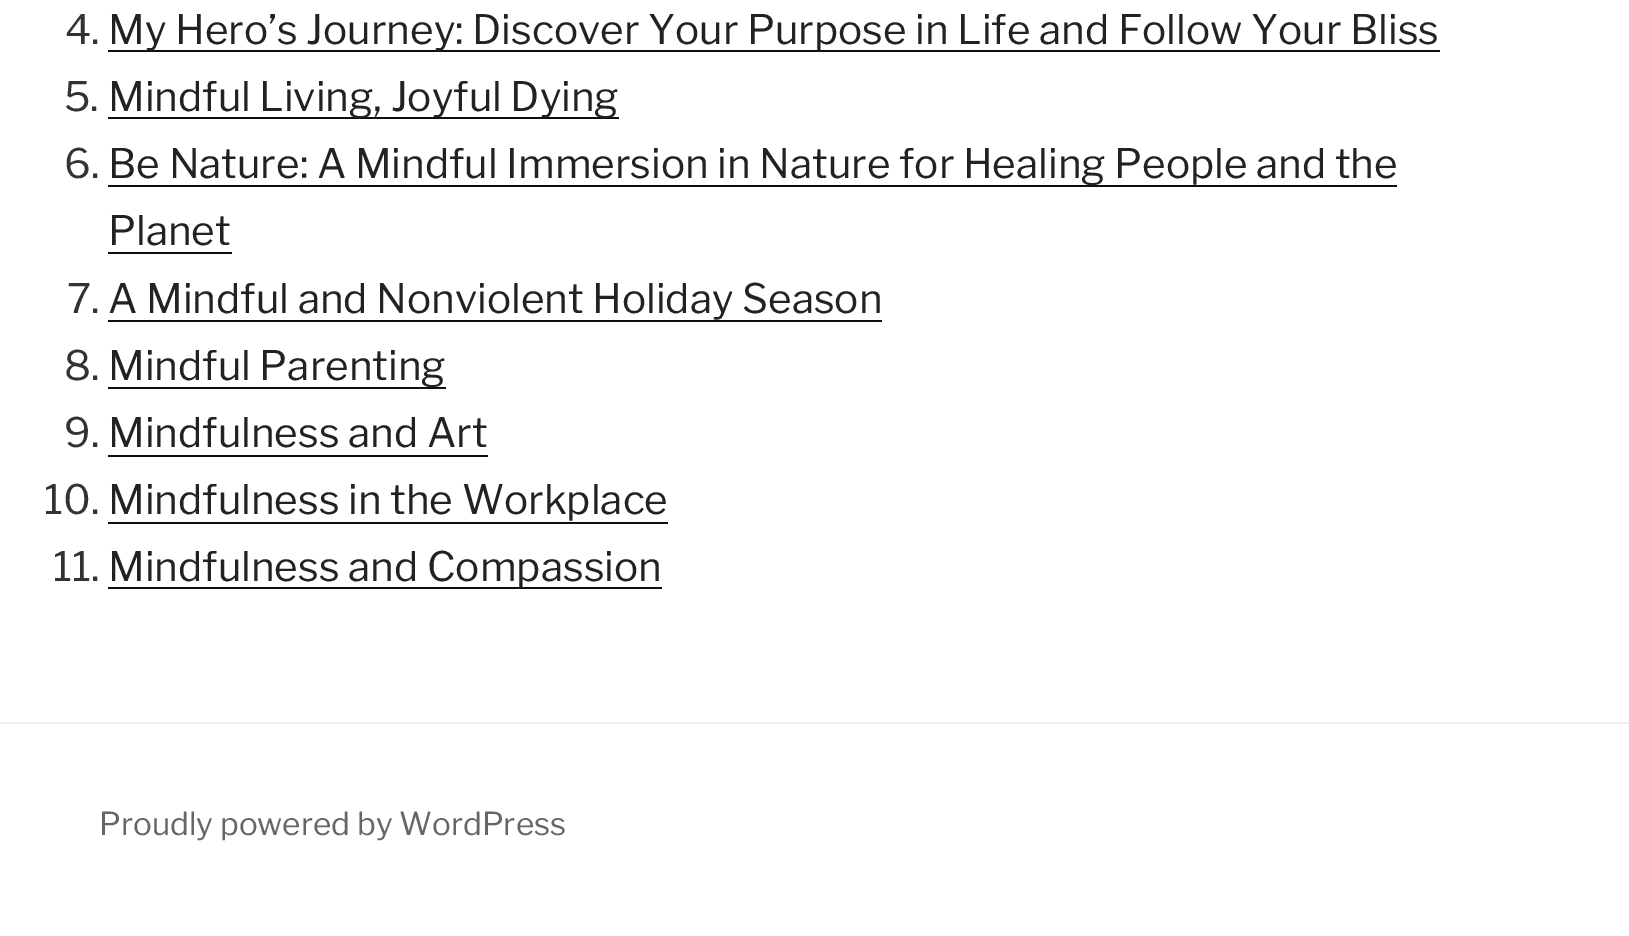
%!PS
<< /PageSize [1629 936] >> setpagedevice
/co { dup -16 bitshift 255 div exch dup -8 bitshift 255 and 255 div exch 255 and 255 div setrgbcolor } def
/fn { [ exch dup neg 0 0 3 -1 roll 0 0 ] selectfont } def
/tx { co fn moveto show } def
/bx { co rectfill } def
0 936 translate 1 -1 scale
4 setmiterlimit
0 0 1629 936 16#FFFFFF bx
108 50 1332 2 16#0F0F0F bx
108 117 511 2 16#0F0F0F bx
108 185 1289 2 16#0F0F0F bx
108 252 124 2 16#0F0F0F bx
108 320 774 2 16#0F0F0F bx
108 387 338 2 16#0F0F0F bx
108 455 380 2 16#0F0F0F bx
108 522 560 2 16#0F0F0F bx
108 587 554 2 16#0F0F0F bx
0 722 1629 2 16#EEEEEE bx
(4.) 65 44 /LibreFranklin-Regular 40.5 16#333333 tx
(My Hero’s Journey: Discover Your Purpose in Life and Follow Your Bliss) 108 44 /LibreFranklin-Regular 40.5 16#222222 tx
(5.) 64 111 /LibreFranklin-Regular 40.5 16#333333 tx
(Mindful Living, Joyful Dying) 108 111 /LibreFranklin-Regular 40.5 16#222222 tx
(6.) 64 178 /LibreFranklin-Regular 40.5 16#333333 tx
(Be Nature: A Mindful Immersion in Nature for Healing People and the) 108 178 /LibreFranklin-Regular 40.5 16#222222 tx
(Planet) 108 245 /LibreFranklin-Regular 40.5 16#222222 tx
(7.) 67 313 /LibreFranklin-Regular 40.5 16#333333 tx
(A Mindful and Nonviolent Holiday Season) 108 313 /LibreFranklin-Regular 40.5 16#222222 tx
(8.) 64 380 /LibreFranklin-Regular 40.5 16#333333 tx
(Mindful Parenting) 108 380 /LibreFranklin-Regular 40.5 16#222222 tx
(9.) 64 447 /LibreFranklin-Regular 40.5 16#333333 tx
(Mindfulness and Art) 108 447 /LibreFranklin-Regular 40.5 16#222222 tx
(10.) 44 514 /LibreFranklin-Regular 40.5 16#333333 tx
(Mindfulness in the Workplace) 108 514 /LibreFranklin-Regular 40.5 16#222222 tx
(11.) 53 581 /LibreFranklin-Regular 40.5 16#333333 tx
(Mindfulness and Compassion) 108 581 /LibreFranklin-Regular 40.5 16#222222 tx
(Proudly powered by WordPress) 99 835 /LibreFranklin-Regular 31.5 16#666666 tx
showpage
